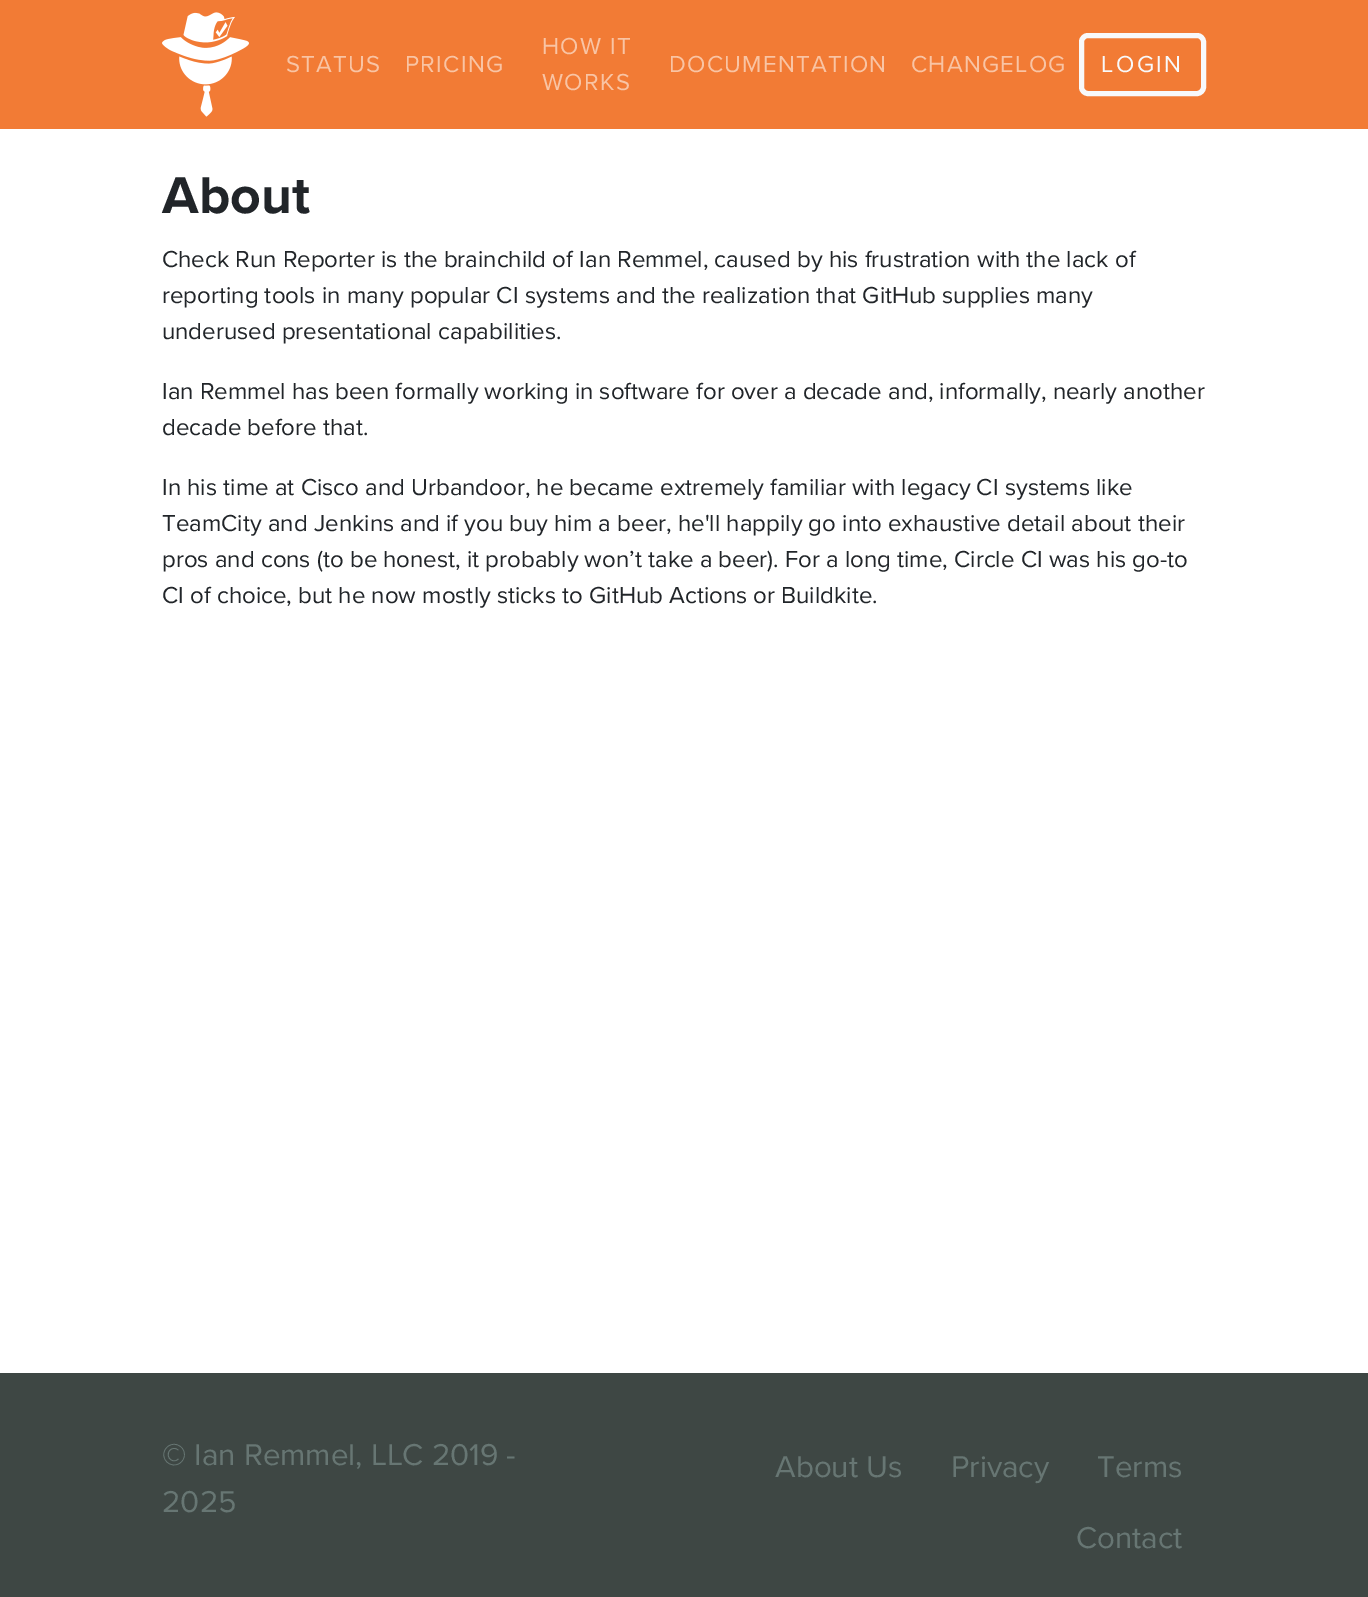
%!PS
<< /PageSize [1368 1597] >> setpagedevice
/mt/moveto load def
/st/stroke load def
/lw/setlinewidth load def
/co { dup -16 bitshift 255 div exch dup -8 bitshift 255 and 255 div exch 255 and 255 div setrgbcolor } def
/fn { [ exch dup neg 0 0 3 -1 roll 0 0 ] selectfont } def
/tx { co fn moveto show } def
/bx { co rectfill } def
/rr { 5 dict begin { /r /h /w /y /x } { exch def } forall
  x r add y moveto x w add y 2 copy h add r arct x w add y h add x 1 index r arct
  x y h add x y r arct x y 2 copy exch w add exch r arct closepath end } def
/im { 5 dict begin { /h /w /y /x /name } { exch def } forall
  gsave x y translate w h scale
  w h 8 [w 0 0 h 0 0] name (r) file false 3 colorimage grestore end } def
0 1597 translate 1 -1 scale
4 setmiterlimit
0 0 1368 1597 16#FFFFFF bx
0 0 1368 129 16#F27B35 bx
(media/1.raw) 162 12 87 105 im
16#F8F9FA co
5 lw
1081.5 35.5 122 58 6.5 rr st
0 1373 1368 224 16#3E4744 bx
/ProximaNova-Regular 24 fn
16#F9C4A4 co
286 72 mt 1.25 0 (STATUS) ashow
405 72 mt 1.25 0 (PRICING) ashow
542 54 mt 1.25 0 (HOW IT) ashow
542 90 mt 1.25 0 (WORKS) ashow
669 72 mt 1.25 0 (DOCUMENTATION) ashow
911 72 mt 1.25 0 (CHANGELOG) ashow
16#F8F9FA co
1101 72 mt 2.5 0 (LOGIN) ashow
(About) 162 213 /ProximaNova-Bold 53.5 16#212529 tx
(Check Run Reporter is the brainchild of Ian Remmel, caused by his frustration with the lack of) 162 267 /ProximaNova-Regular 24 16#212529 tx
(reporting tools in many popular CI systems and the realization that GitHub supplies many) 162 303 /ProximaNova-Regular 24 16#212529 tx
(underused presentational capabilities.) 162 339 /ProximaNova-Regular 24 16#212529 tx
(Ian Remmel has been formally working in software for over a decade and, informally, nearly another) 162 399 /ProximaNova-Regular 24 16#212529 tx
(decade before that.) 162 435 /ProximaNova-Regular 24 16#212529 tx
(In his time at Cisco and Urbandoor, he became extremely familiar with legacy CI systems like) 162 495 /ProximaNova-Regular 24 16#212529 tx
(TeamCity and Jenkins and if you buy him a beer, he'll happily go into exhaustive detail about their) 162 531 /ProximaNova-Regular 24 16#212529 tx
(pros and cons \(to be honest, it probably won’t take a beer\). For a long time, Circle CI was his go-to) 162 567 /ProximaNova-Regular 24 16#212529 tx
(CI of choice, but he now mostly sticks to GitHub Actions or Buildkite.) 162 603 /ProximaNova-Regular 24 16#212529 tx
(© Ian Remmel, LLC 2019 -) 162 1465 /ProximaNova-Regular 31.25 16#677673 tx
(2025) 162 1512 /ProximaNova-Regular 31.25 16#677673 tx
(About Us) 775 1477 /ProximaNova-Regular 31.25 16#677673 tx
(Privacy) 951 1477 /ProximaNova-Regular 31.25 16#677673 tx
(Terms) 1097 1477 /ProximaNova-Regular 31.25 16#677673 tx
(Contact) 1076 1548 /ProximaNova-Regular 31.25 16#677673 tx
showpage
